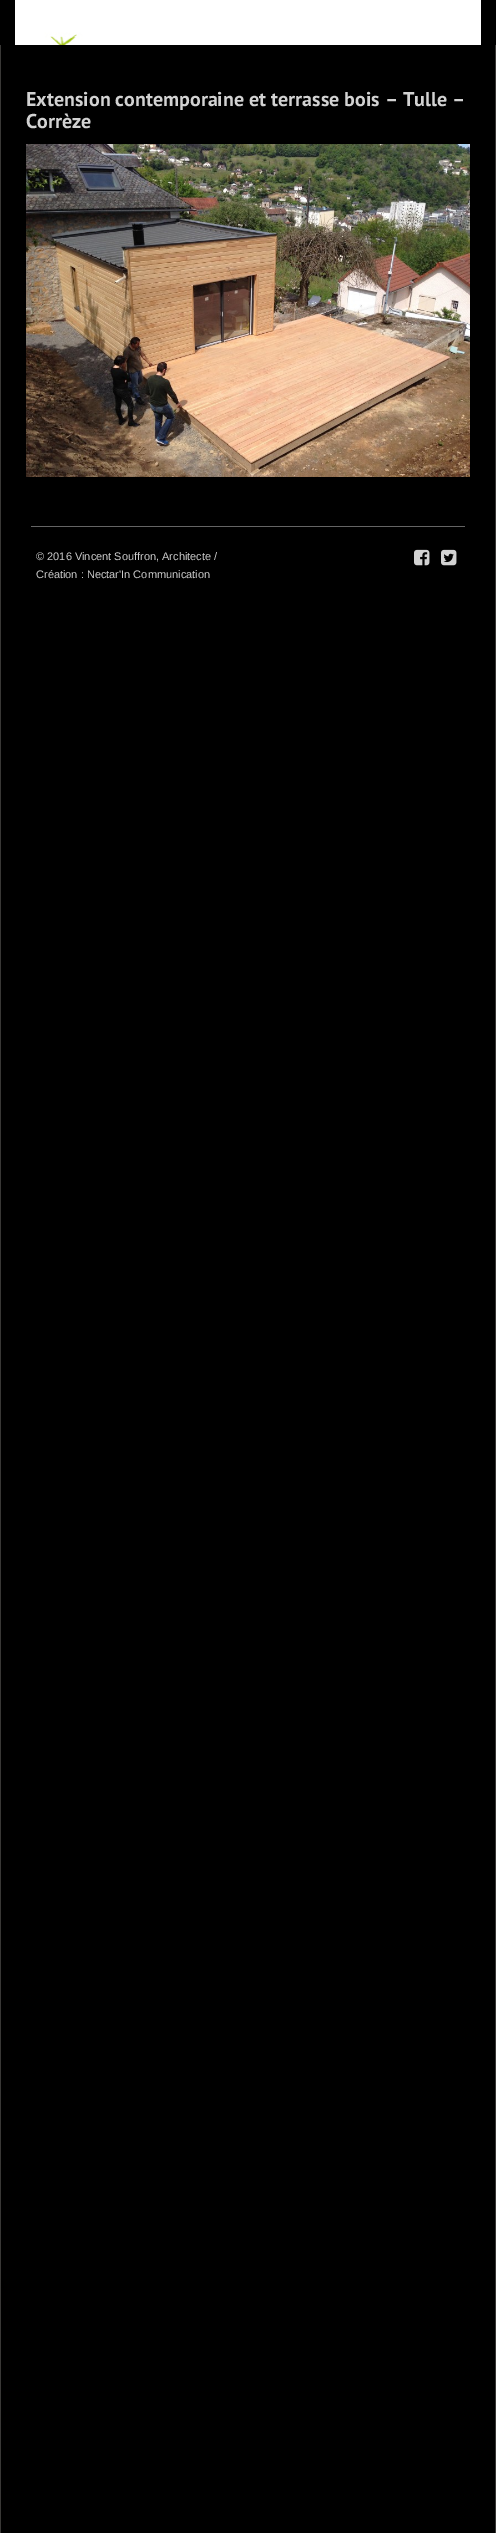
%!PS
<< /PageSize [496 2533] >> setpagedevice
/co { dup -16 bitshift 255 div exch dup -8 bitshift 255 and 255 div exch 255 and 255 div setrgbcolor } def
/fn { [ exch dup neg 0 0 3 -1 roll 0 0 ] selectfont } def
/tx { co fn moveto show } def
/bx { co rectfill } def
/im { 5 dict begin { /h /w /y /x /name } { exch def } forall
  gsave x y translate w h scale
  w h 8 [w 0 0 h 0 0] name (r) file false 3 colorimage grestore end } def
0 2533 translate 1 -1 scale
4 setmiterlimit
0 0 496 2533 16#000000 bx
(media/1.raw) 15 0 466 45 im
495 45 1 2488 16#393836 bx
0 45 1 2488 16#393836 bx
(media/2.raw) 26 144 444 333 im
31 526 434 1 16#646464 bx
(media/3.raw) 414 549 16 17 im
(media/4.raw) 441 549 16 17 im
(Extension contemporaine et terrasse bois – Tulle –) 26 106 /PTSans-Bold 20 16#D2D2D2 tx
(Corrèze) 26 128 /PTSans-Bold 20 16#D2D2D2 tx
(© 2016 Vincent Souffron, Architecte /) 36 560 /LiberationSans-Regular 11 16#CCCCCC tx
(Création : Nectar'In Communication) 36 578 /LiberationSans-Regular 11 16#CCCCCC tx
showpage
